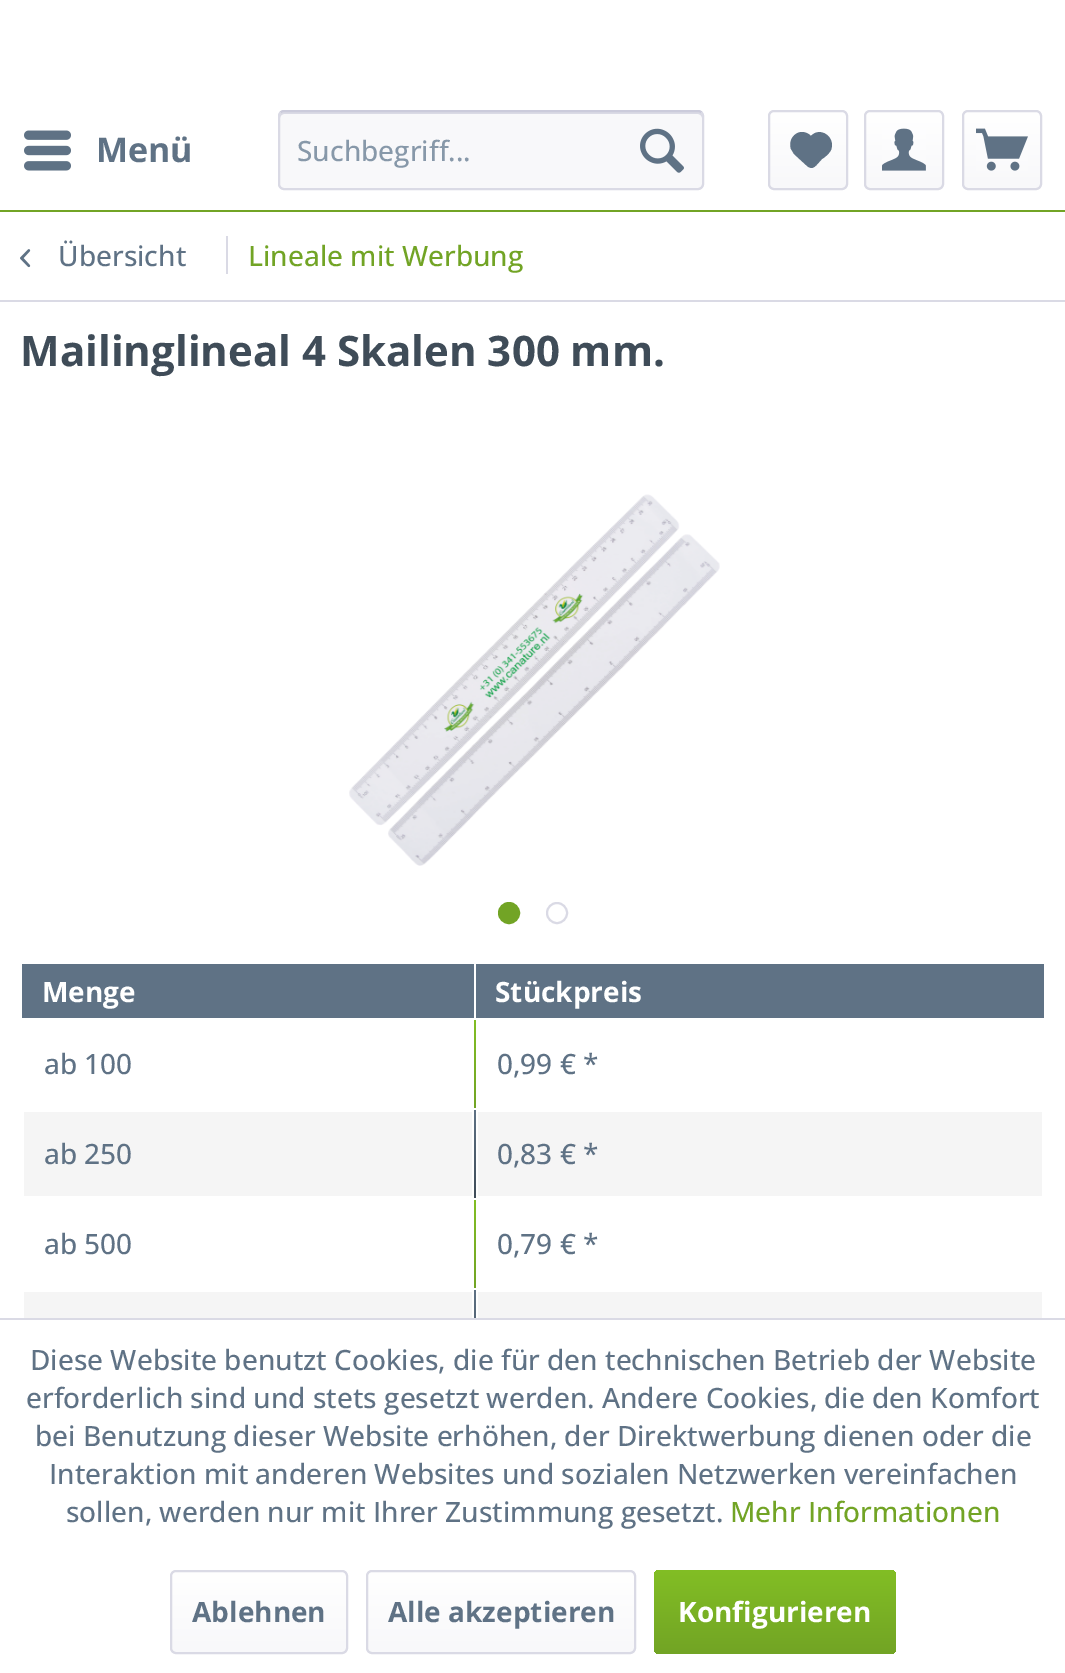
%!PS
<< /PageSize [1065 1673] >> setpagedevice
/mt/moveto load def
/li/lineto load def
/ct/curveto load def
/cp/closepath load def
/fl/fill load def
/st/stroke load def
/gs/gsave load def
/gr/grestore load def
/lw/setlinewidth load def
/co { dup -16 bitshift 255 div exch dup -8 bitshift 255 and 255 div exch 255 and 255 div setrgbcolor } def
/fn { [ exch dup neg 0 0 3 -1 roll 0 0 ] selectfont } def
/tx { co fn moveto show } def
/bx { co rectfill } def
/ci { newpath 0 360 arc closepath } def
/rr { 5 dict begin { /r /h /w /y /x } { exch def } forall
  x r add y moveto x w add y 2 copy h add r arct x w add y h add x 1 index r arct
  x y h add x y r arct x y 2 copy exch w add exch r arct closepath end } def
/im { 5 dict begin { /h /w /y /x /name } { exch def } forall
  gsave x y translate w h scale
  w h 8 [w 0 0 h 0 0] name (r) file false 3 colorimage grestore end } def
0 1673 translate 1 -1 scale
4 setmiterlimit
0 0 1065 1673 16#FFFFFF bx
0 210 1065 2 16#72A425 bx
(media/1.raw) 24 130 47 41 im
16#F8F8FA co
278 110 426 80 6 rr fl
16#DADAE5 co
284 114 mt 698 114 li 700 114 702 116 702 118 ct 702 115 702 112 698 112 ct 284 112 li 280 112 280 115 280 118 ct 280 116 282 114 284 114 ct cp fl
16#CBCBDB co
2 lw
280.5 112.5 mt 281.5 111.5 282.5 111 284 111 ct 698 111 li 699.5 111 700.5 111.5 701.5 112.5 ct st
16#DADAE5 co
701.5 112.5 mt 702.5 113.5 703 114.5 703 116 ct 703 184 li 703 185.5 702.5 186.5 701.5 187.5 ct 700.5 188.5 699.5 189 698 189 ct 284 189 li 282.5 189 281.5 188.5 280.5 187.5 ct 279.5 186.5 279 185.5 279 184 ct 279 116 li 279 114.5 279.5 113.5 280.5 112.5 ct st
(media/2.raw) 640 128 44 45 im
gs 770 112 76 76 4 rr clip newpath
<< /ShadingType 2 /ColorSpace /DeviceRGB /Coords [808 112 808 188] /Extend [true true] /Function << /FunctionType 2 /Domain [0 1] /C0 [1 1 1] /C1 [.973 .973 .98] /N 1 >> >> shfill gr
769 111 78 78 5 rr st
16#5F7285 co
802 132 mt 794 132 788 141 791 149 ct 794 154 li 806 165 li 813 172 816 165 822 159 ct 825 157 829 154 831 150 ct 836 137 820 126 811 136 ct 809 134 806 132 802 132 ct cp fl
gs 866 112 76 76 4 rr clip newpath
<< /ShadingType 2 /ColorSpace /DeviceRGB /Coords [904 112 904 188] /Extend [true true] /Function << /FunctionType 2 /Domain [0 1] /C0 [1 1 1] /C1 [.973 .973 .98] /N 1 >> >> shfill gr
16#DADAE5 co
865 111 78 78 5 rr st
(media/3.raw) 882 128 44 43 im
gs 964 112 76 76 4 rr clip newpath
<< /ShadingType 2 /ColorSpace /DeviceRGB /Coords [1002 112 1002 188] /Extend [true true] /Function << /FunctionType 2 /Domain [0 1] /C0 [1 1 1] /C1 [.973 .973 .98] /N 1 >> >> shfill gr
963 111 78 78 5 rr st
(media/4.raw) 976 128 52 43 im
0 300 1065 2 16#DADAE5 bx
(media/5.raw) 20 249 11 19 im
226 236 2 38 16#DADAE5 bx
(media/6.raw) 349 494 371 372 im
16#72A425 co
509 913 10 ci gs fl gr
st
16#DADAE5 co
557 913 10 ci st
22 964 452 54 16#5F7285 bx
476 964 568 54 16#5F7285 bx
gs 474 1020 mt 476 1020 li 476 1108 li 474 1108 li cp clip newpath
<< /ShadingType 2 /ColorSpace /DeviceRGB /Coords [533 1020 533 1108] /Extend [true true] /Function << /FunctionType 2 /Domain [0 1] /C0 [.51 .745 .141] /C1 [.447 .643 .145] /N 1 >> >> shfill gr
gs 474 1110 mt 476 1110 li 476 1198 li 474 1198 li cp clip newpath
<< /ShadingType 2 /ColorSpace /DeviceRGB /Coords [533 1110 533 1198] /Extend [true true] /Function << /FunctionType 2 /Domain [0 1] /C0 [.373 .447 .522] /C1 [.247 .298 .345] /N 1 >> >> shfill gr
24 1112 448 84 16#F5F5F5 bx
478 1112 564 84 16#F5F5F5 bx
gs 474 1200 mt 476 1200 li 476 1288 li 474 1288 li cp clip newpath
<< /ShadingType 2 /ColorSpace /DeviceRGB /Coords [533 1200 533 1288] /Extend [true true] /Function << /FunctionType 2 /Domain [0 1] /C0 [.51 .745 .141] /C1 [.447 .643 .145] /N 1 >> >> shfill gr
gs 474 1290 mt 476 1290 li 476 1318 li 474 1318 li cp clip newpath
<< /ShadingType 2 /ColorSpace /DeviceRGB /Coords [533 1290 533 1378] /Extend [true true] /Function << /FunctionType 2 /Domain [0 1] /C0 [.373 .447 .522] /C1 [.247 .298 .345] /N 1 >> >> shfill gr
24 1292 448 26 16#F5F5F5 bx
478 1292 564 26 16#F5F5F5 bx
0 1318 1065 2 16#DADAE5 bx
gs 172 1572 174 80 4 rr clip newpath
<< /ShadingType 2 /ColorSpace /DeviceRGB /Coords [259 1572 259 1652] /Extend [true true] /Function << /FunctionType 2 /Domain [0 1] /C0 [1 1 1] /C1 [.973 .973 .98] /N 1 >> >> shfill gr
171 1571 176 82 5 rr st
gs 368 1572 266 80 4 rr clip newpath
<< /ShadingType 2 /ColorSpace /DeviceRGB /Coords [501 1572 501 1652] /Extend [true true] /Function << /FunctionType 2 /Domain [0 1] /C0 [1 1 1] /C1 [.973 .973 .98] /N 1 >> >> shfill gr
367 1571 268 82 5 rr st
gs 654 1570 242 84 6 rr clip newpath
<< /ShadingType 2 /ColorSpace /DeviceRGB /Coords [775 1570 775 1654] /Extend [true true] /Function << /FunctionType 2 /Domain [0 1] /C0 [.51 .745 .141] /C1 [.447 .643 .145] /N 1 >> >> shfill gr
(Menü) 96 162 /OpenSans-Bold 34 16#5F7285 tx
(Suchbegriff...) 297 161 /OpenSans-Medium 28 16#8798A9 tx
(Übersicht) 58 266 /OpenSans-Medium 28 16#5F7285 tx
(Lineale mit Werbung) 248 266 /OpenSans-Medium 28 16#72A425 tx
(Mailinglineal 4 Skalen 300 mm.) 20 366 /OpenSans-Bold 42 16#3F4C58 tx
(Menge) 42 1002 /OpenSans-Bold 28 16#FFFFFF tx
(Stückpreis) 495 1002 /OpenSans-Bold 28 16#FFFFFF tx
(ab 100) 44 1074 /OpenSans-Medium 28 16#5F7285 tx
(0,99 € *) 497 1074 /OpenSans-Medium 28 16#5F7285 tx
(ab 250) 44 1164 /OpenSans-Medium 28 16#5F7285 tx
(0,83 € *) 497 1164 /OpenSans-Medium 28 16#5F7285 tx
(ab 500) 44 1254 /OpenSans-Medium 28 16#5F7285 tx
(0,79 € *) 497 1254 /OpenSans-Medium 28 16#5F7285 tx
(Diese Website benutzt Cookies, die für den technischen Betrieb der Website) 30 1370 /OpenSans-Medium 28 16#5F7285 tx
(erforderlich sind und stets gesetzt werden. Andere Cookies, die den Komfort) 26 1408 /OpenSans-Medium 28 16#5F7285 tx
(bei Benutzung dieser Website erhöhen, der Direktwerbung dienen oder die) 35 1446 /OpenSans-Medium 28 16#5F7285 tx
(Interaktion mit anderen Websites und sozialen Netzwerken vereinfachen) 49 1484 /OpenSans-Medium 28 16#5F7285 tx
(sollen, werden nur mit Ihrer Zustimmung gesetzt.) 66 1522 /OpenSans-Medium 28 16#5F7285 tx
(Mehr Informationen) 730 1522 /OpenSans-Medium 28 16#72A425 tx
(Ablehnen) 192 1622 /OpenSans-Bold 28 16#5F7285 tx
(Alle akzeptieren) 388 1622 /OpenSans-Bold 28 16#5F7285 tx
(Konfigurieren) 678 1622 /OpenSans-Bold 28 16#FFFFFF tx
showpage
